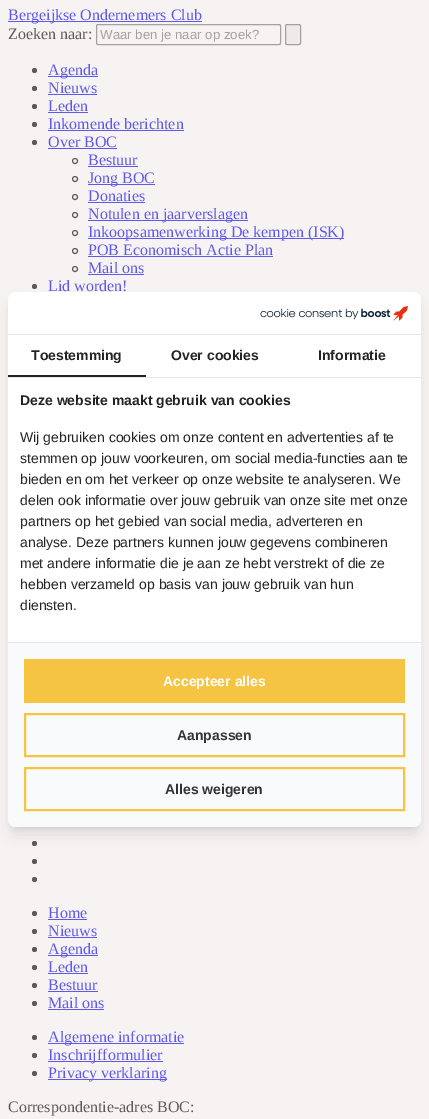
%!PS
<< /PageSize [429 1119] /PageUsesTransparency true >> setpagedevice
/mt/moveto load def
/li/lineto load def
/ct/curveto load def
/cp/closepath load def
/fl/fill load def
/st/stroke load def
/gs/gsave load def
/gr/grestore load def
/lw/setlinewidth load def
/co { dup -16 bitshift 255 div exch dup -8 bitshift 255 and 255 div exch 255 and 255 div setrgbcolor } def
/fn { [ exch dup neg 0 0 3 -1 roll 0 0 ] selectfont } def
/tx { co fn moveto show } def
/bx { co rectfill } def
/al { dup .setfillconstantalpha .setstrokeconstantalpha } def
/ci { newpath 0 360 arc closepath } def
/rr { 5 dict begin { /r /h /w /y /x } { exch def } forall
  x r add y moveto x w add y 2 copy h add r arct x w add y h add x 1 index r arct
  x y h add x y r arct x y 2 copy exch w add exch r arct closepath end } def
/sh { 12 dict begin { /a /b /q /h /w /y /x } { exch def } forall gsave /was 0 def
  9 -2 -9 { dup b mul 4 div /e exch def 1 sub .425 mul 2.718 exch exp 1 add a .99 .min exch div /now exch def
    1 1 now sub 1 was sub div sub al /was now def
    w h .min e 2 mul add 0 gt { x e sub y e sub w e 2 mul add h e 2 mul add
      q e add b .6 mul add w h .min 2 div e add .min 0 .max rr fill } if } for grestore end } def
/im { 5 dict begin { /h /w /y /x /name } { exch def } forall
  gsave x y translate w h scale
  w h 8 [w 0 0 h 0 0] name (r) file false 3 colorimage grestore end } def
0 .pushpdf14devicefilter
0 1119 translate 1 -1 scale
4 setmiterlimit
0 0 429 1119 16#F7F3F3 bx
8 21 194 1 16#5E5AE9 bx
16#A5A1A1 co
96.5 24.5 184 20 1.5 rr st
16#EDEAEA co
285.5 24.5 15 20 1.5 rr gs fl gr
16#A5A1A1 co
st
16#5E5A5A co
34.5 70.5 2.5 ci fl
48 76 50 1 16#5E5AE9 bx
16#5E5A5A co
34.5 88.5 2.5 ci fl
48 94 49 1 16#5E5AE9 bx
16#5E5A5A co
34.5 106.5 2.5 ci fl
48 112 40 1 16#5E5AE9 bx
16#5E5A5A co
34.5 124.5 2.5 ci fl
48 130 136 1 16#5E5AE9 bx
16#5E5A5A co
34.5 142.5 2.5 ci fl
48 148 69 1 16#5E5AE9 bx
16#5E5A5A co
75 161 2.5 ci st
88 166 50 1 16#5E5AE9 bx
16#5E5A5A co
75 179 2.5 ci st
88 184 67 1 16#5E5AE9 bx
16#5E5A5A co
75 197 2.5 ci st
88 202 57 1 16#5E5AE9 bx
16#5E5A5A co
75 215 2.5 ci st
88 220 160 1 16#5E5AE9 bx
16#5E5A5A co
75 233 2.5 ci st
88 238 256 1 16#5E5AE9 bx
16#5E5A5A co
75 251 2.5 ci st
88 256 185 1 16#5E5AE9 bx
16#5E5A5A co
75 269 2.5 ci st
88 274 56 1 16#5E5AE9 bx
16#5E5A5A co
34.5 286.5 2.5 ci fl
16#000000 co
12 300 405 527 4 3 .1 sh
16#5E5A5A co
34.5 843.5 2.5 ci fl
16#000000 co
11 305 407 529 5 7.5 .1 sh
16#FFFFFF co
8 292 413 535 8 rr fl
8 334 413 1 16#E5E7EB bx
(media/1.raw) 260 306 148 15 im
8 377 413 1 16#E5E7EB bx
8 375 138 2 16#242424 bx
gs
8 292 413 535 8 rr clip newpath
16#FFFFFF co
0 614 429 201 0 10 1 sh
gr
16#F9FAFB co
8 642 mt 421 642 li 421 819 li 421 823.5 417.5 827 413 827 ct 16 827 li 11.5 827 8 823.5 8 819 ct cp fl
8 642 413 1 16#E5E7EB bx
24 659 381 44 16#F6C443 bx
2 lw
25 714 379 42 rectstroke
25 768 379 42 rectstroke
16#5E5A5A co
34.5 861.5 2.5 ci fl
34.5 879.5 2.5 ci fl
34.5 913.5 2.5 ci fl
48 919 39 1 16#5E5AE9 bx
16#5E5A5A co
34.5 931.5 2.5 ci fl
48 937 49 1 16#5E5AE9 bx
16#5E5A5A co
34.5 949.5 2.5 ci fl
48 955 50 1 16#5E5AE9 bx
16#5E5A5A co
34.5 967.5 2.5 ci fl
48 973 40 1 16#5E5AE9 bx
16#5E5A5A co
34.5 985.5 2.5 ci fl
48 991 50 1 16#5E5AE9 bx
16#5E5A5A co
34.5 1003.5 2.5 ci fl
48 1009 56 1 16#5E5AE9 bx
16#5E5A5A co
34.5 1037.5 2.5 ci fl
48 1043 136 1 16#5E5AE9 bx
16#5E5A5A co
34.5 1055.5 2.5 ci fl
48 1061 115 1 16#5E5AE9 bx
16#5E5A5A co
34.5 1073.5 2.5 ci fl
48 1079 119 1 16#5E5AE9 bx
(Bergeijkse Ondernemers Club) 8 20 /LiberationSerif-Regular 16 16#5E5AE9 tx
(Zoeken naar:) 8 39 /LiberationSerif-Regular 16 16#5E5A5A tx
(Waar ben je naar op zoek?) 100 39 /LiberationSans-Regular 13.25 16#A4A1A1 tx
(Agenda) 48 75 /LiberationSerif-Regular 16 16#5E5AE9 tx
(Nieuws) 48 93 /LiberationSerif-Regular 16 16#5E5AE9 tx
(Leden) 48 111 /LiberationSerif-Regular 16 16#5E5AE9 tx
(Inkomende berichten) 48 129 /LiberationSerif-Regular 16 16#5E5AE9 tx
(Over BOC) 48 147 /LiberationSerif-Regular 16 16#5E5AE9 tx
(Bestuur) 88 165 /LiberationSerif-Regular 16 16#5E5AE9 tx
(Jong BOC) 88 183 /LiberationSerif-Regular 16 16#5E5AE9 tx
(Donaties) 88 201 /LiberationSerif-Regular 16 16#5E5AE9 tx
(Notulen en jaarverslagen) 88 219 /LiberationSerif-Regular 16 16#5E5AE9 tx
(Inkoopsamenwerking De kempen \(ISK\)) 88 237 /LiberationSerif-Regular 16 16#5E5AE9 tx
(POB Economisch Actie Plan) 88 255 /LiberationSerif-Regular 16 16#5E5AE9 tx
(Mail ons) 88 273 /LiberationSerif-Regular 16 16#5E5AE9 tx
(Lid worden!) 48 291 /LiberationSerif-Regular 16 16#5E5AE9 tx
(Toestemming) 31 360 /LiberationSans-Bold 14 16#242424 tx
(Over cookies) 171 360 /LiberationSans-Bold 14 16#242424 tx
(Informatie) 318 360 /LiberationSans-Bold 14 16#242424 tx
(Deze website maakt gebruik van cookies) 20 405 /LiberationSans-Bold 14 16#242424 tx
(Wij gebruiken cookies om onze content en advertenties af te) 20 442 /LiberationSans-Regular 14 16#242424 tx
(stemmen op jouw voorkeuren, om social media-functies aan te) 20 463 /LiberationSans-Regular 14 16#242424 tx
(bieden en om het verkeer op onze website te analyseren. We) 20 484 /LiberationSans-Regular 14 16#242424 tx
(delen ook informatie over jouw gebruik van onze site met onze) 20 505 /LiberationSans-Regular 14 16#242424 tx
(partners op het gebied van social media, adverteren en) 20 526 /LiberationSans-Regular 14 16#242424 tx
(analyse. Deze partners kunnen jouw gegevens combineren) 20 547 /LiberationSans-Regular 14 16#242424 tx
(met andere informatie die je aan ze hebt verstrekt of die ze) 20 568 /LiberationSans-Regular 14 16#242424 tx
(hebben verzameld op basis van jouw gebruik van hun) 20 589 /LiberationSans-Regular 14 16#242424 tx
(diensten.) 20 610 /LiberationSans-Regular 14 16#242424 tx
(Accepteer alles) 163 686 /LiberationSans-Bold 14 16#FFFFFF tx
(Aanpassen) 177 740 /LiberationSans-Bold 14 16#333333 tx
(Alles weigeren) 165 794 /LiberationSans-Bold 14 16#333333 tx
(Home) 48 918 /LiberationSerif-Regular 16 16#5E5AE9 tx
(Nieuws) 48 936 /LiberationSerif-Regular 16 16#5E5AE9 tx
(Agenda) 48 954 /LiberationSerif-Regular 16 16#5E5AE9 tx
(Leden) 48 972 /LiberationSerif-Regular 16 16#5E5AE9 tx
(Bestuur) 48 990 /LiberationSerif-Regular 16 16#5E5AE9 tx
(Mail ons) 48 1008 /LiberationSerif-Regular 16 16#5E5AE9 tx
(Algemene informatie) 48 1042 /LiberationSerif-Regular 16 16#5E5AE9 tx
(Inschrijfformulier) 48 1060 /LiberationSerif-Regular 16 16#5E5AE9 tx
(Privacy verklaring) 48 1078 /LiberationSerif-Regular 16 16#5E5AE9 tx
(Correspondentie-adres BOC:) 8 1112 /LiberationSerif-Regular 16 16#5E5A5A tx
.poppdf14devicefilter showpage
